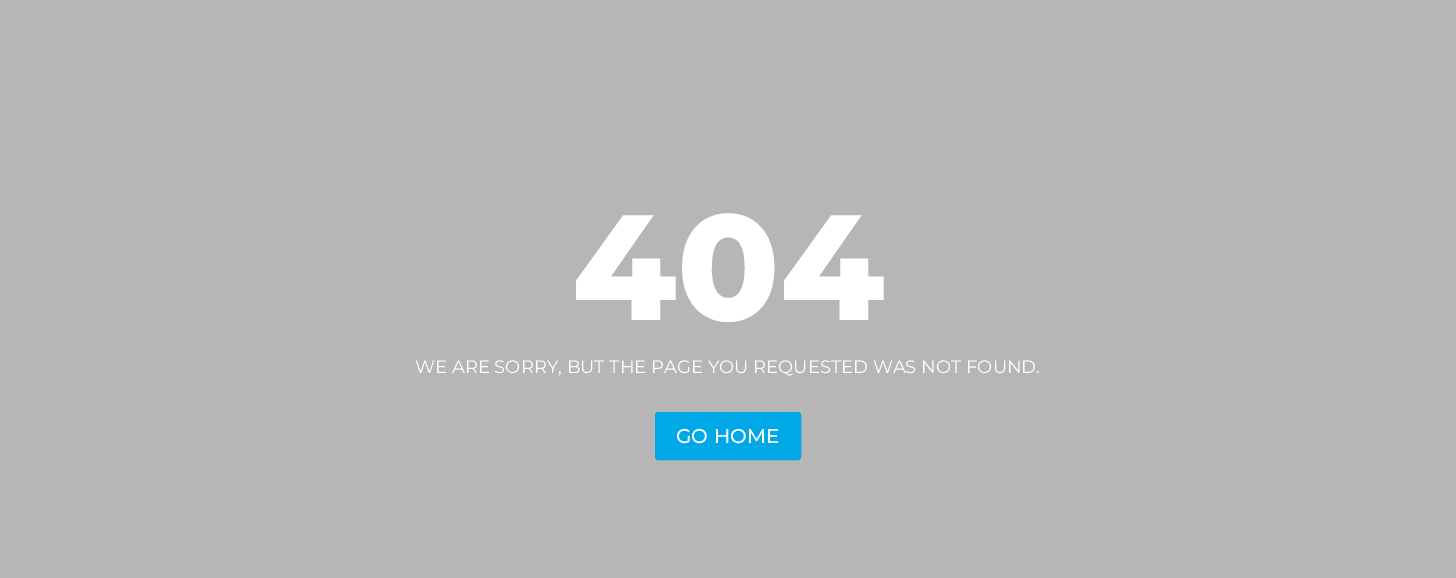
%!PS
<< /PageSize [1456 578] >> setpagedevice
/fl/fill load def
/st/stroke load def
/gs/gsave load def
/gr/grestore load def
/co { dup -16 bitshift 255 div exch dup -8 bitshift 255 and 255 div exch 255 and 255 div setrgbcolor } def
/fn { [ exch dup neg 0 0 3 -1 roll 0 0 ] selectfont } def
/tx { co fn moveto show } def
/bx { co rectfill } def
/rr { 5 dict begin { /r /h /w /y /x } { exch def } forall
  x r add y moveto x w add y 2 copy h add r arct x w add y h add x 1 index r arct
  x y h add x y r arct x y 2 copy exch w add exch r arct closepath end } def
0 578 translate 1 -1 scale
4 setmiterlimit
0 0 1456 578 16#B6B6B6 bx
16#00A8E8 co
655.5 412.5 145 47 2.5 rr gs fl gr
st
(404) 572 320 /Montserrat-ExtraBold 150 16#FFFFFF tx
(WE ARE SORRY, BUT THE PAGE YOU REQUESTED WAS NOT FOUND.) 415 373 /Montserrat-Regular 18 16#FFFFFF tx
(GO HOME) 676 443 /Montserrat-Medium 20 16#FFFFFF tx
showpage
